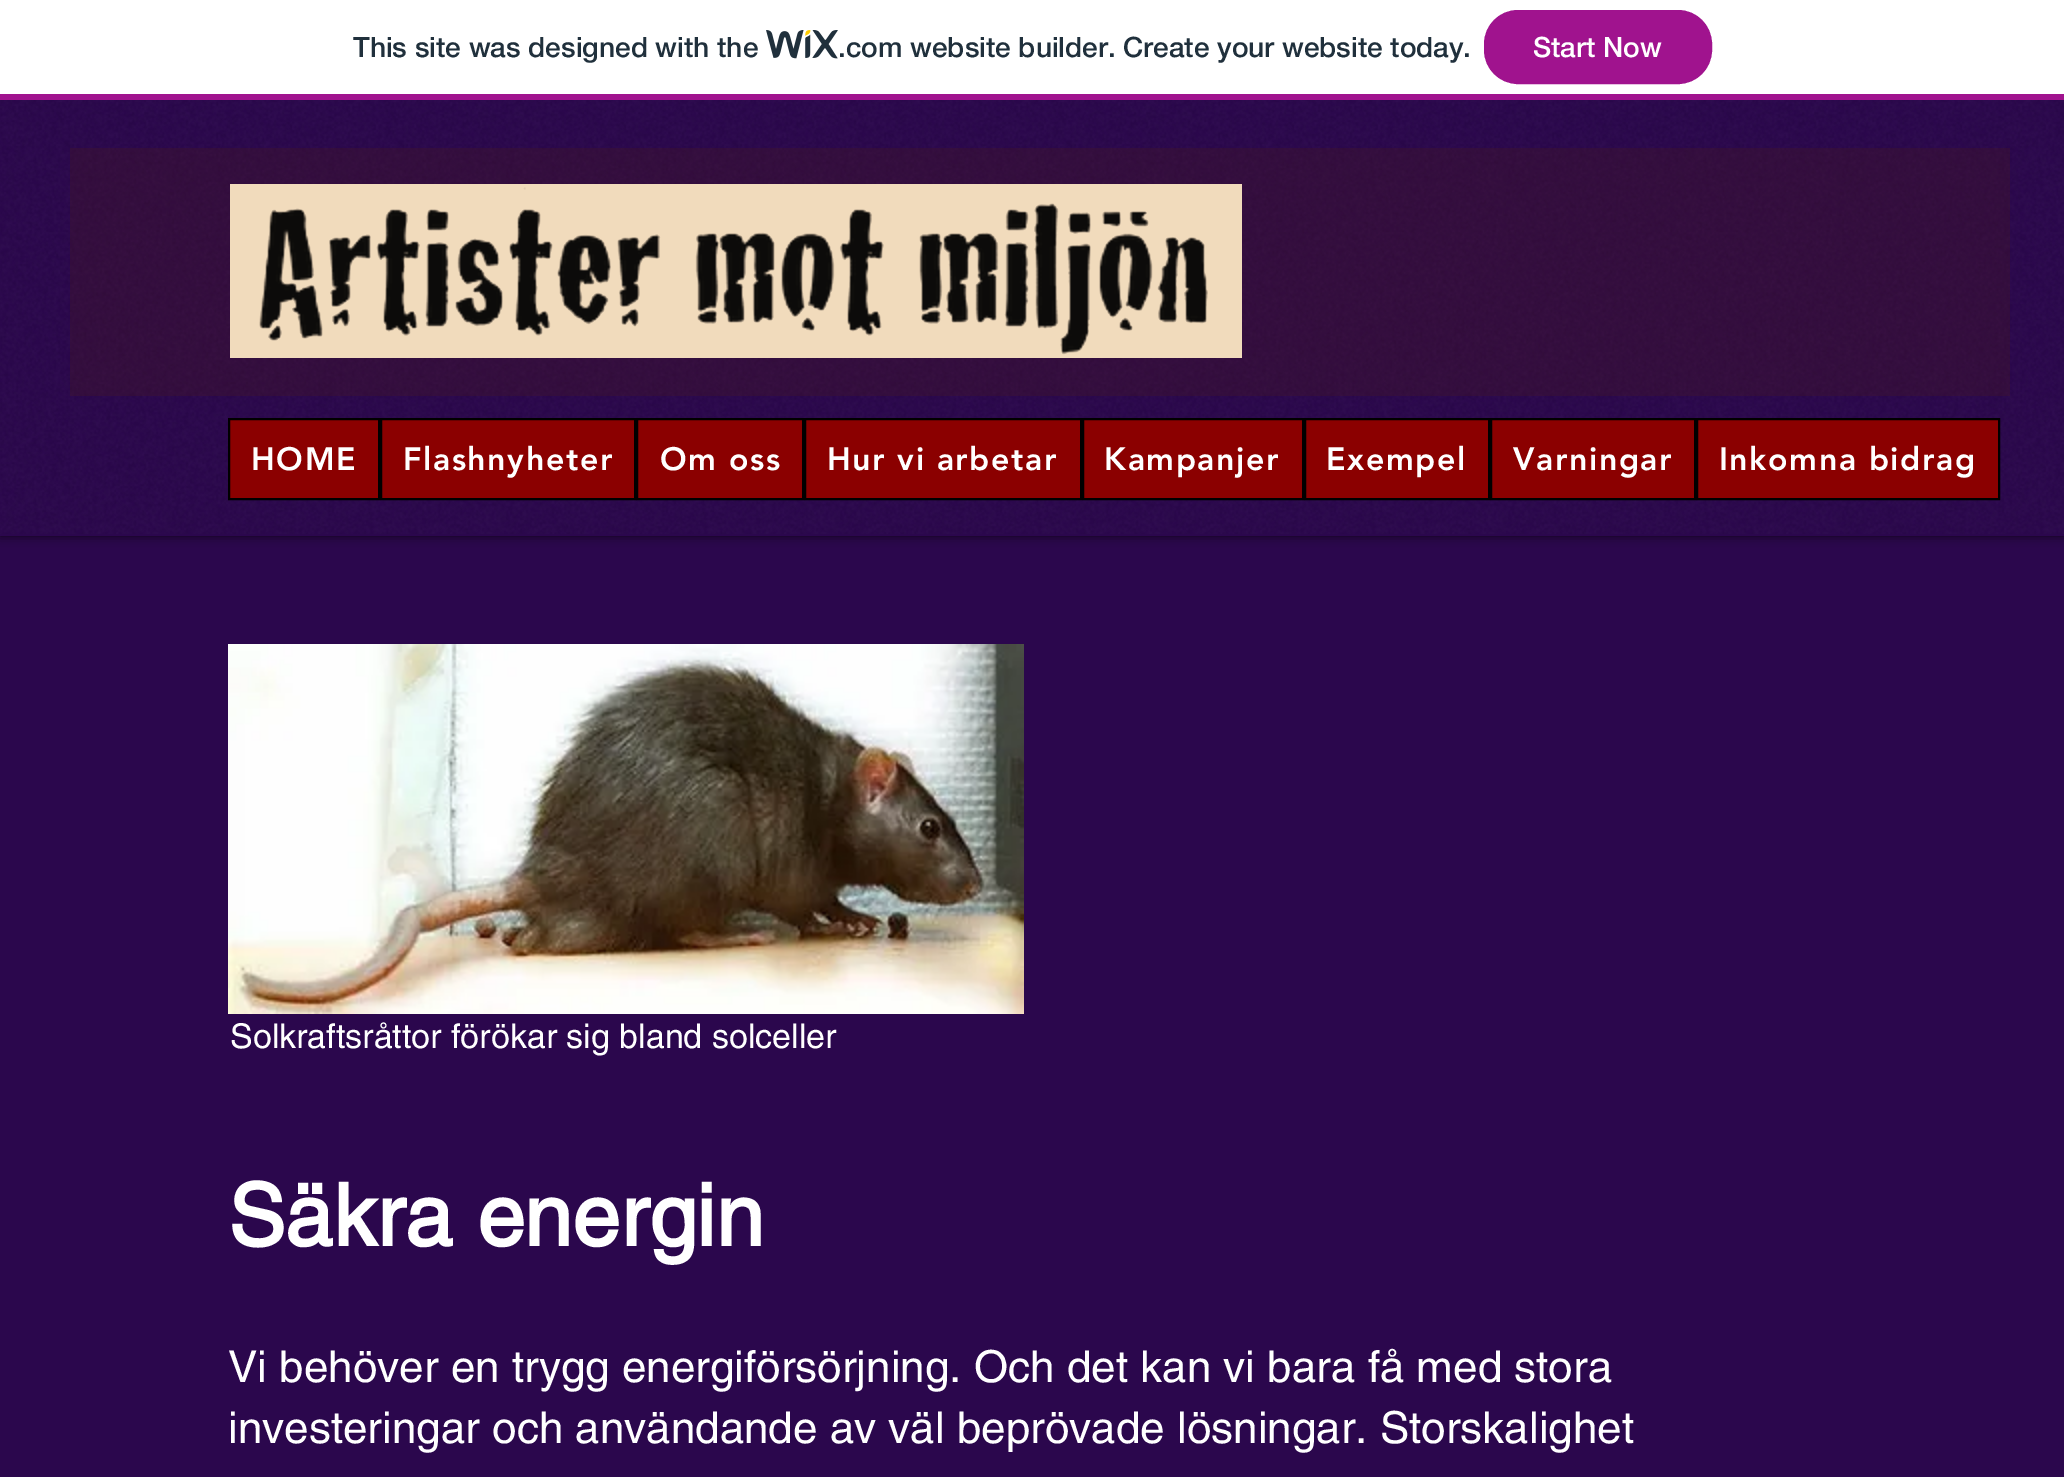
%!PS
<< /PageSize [2064 1477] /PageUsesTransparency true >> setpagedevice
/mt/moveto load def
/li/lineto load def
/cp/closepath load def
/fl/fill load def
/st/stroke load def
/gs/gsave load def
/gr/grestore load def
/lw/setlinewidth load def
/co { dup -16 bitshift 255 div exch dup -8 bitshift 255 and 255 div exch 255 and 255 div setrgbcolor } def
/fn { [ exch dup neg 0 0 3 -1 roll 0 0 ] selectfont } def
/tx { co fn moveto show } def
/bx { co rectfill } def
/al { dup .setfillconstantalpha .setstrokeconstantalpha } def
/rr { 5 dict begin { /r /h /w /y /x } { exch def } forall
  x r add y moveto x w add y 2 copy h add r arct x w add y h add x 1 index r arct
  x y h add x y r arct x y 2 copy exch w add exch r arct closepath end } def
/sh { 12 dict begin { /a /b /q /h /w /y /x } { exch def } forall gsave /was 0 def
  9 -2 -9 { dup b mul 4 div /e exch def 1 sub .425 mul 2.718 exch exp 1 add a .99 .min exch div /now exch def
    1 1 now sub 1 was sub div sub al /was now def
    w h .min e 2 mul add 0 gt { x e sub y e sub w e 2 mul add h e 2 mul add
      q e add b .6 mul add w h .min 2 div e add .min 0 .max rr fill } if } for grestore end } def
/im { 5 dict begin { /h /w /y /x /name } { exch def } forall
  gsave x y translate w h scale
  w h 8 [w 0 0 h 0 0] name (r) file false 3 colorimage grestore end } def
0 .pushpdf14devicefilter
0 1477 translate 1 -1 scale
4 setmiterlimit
0 0 2064 1477 16#2B074D bx
16#000000 co
0 100 2064 436 0 5 .7 sh
0 0 2064 94 16#FFFFFF bx
0 94 2064 6 16#A0138E bx
(media/1.raw) 766 30 72 29 im
1485 11 226 72 33 rr gs fl gr
2 lw
st
0 100 2064 436 16#2B074D bx
(media/2.raw) 0 100 2064 434 im
0.23 al
70 148 1940 248 16#4F1D0E bx
1 al
(media/3.raw) 230 184 1012 174 im
16#8B0000 co
229 419 mt 379 419 li 379 499 li 229 499 li cp gs fl gr
16#000000 co
st
16#8B0000 co
381 419 mt 635 419 li 635 499 li 381 499 li cp gs fl gr
16#000000 co
st
16#8B0000 co
637 419 mt 803 419 li 803 499 li 637 499 li cp gs fl gr
16#000000 co
st
16#8B0000 co
805 419 mt 1081 419 li 1081 499 li 805 499 li cp gs fl gr
16#000000 co
st
16#8B0000 co
1083 419 mt 1303 419 li 1303 499 li 1083 499 li cp gs fl gr
16#000000 co
st
16#8B0000 co
1305 419 mt 1489 419 li 1489 499 li 1305 499 li cp gs fl gr
16#000000 co
st
16#8B0000 co
1491 419 mt 1695 419 li 1695 499 li 1491 499 li cp gs fl gr
16#000000 co
st
16#8B0000 co
1697 419 mt 1999 419 li 1999 499 li 1697 499 li cp gs fl gr
16#000000 co
st
(media/4.raw) 228 644 796 370 im
(This site was designed with the) 353 57 /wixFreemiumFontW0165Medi-Medium 28 16#20303C tx
(.com website builder. Create your website today.) 838 57 /wixFreemiumFontW0165Medi-Medium 28 16#20303C tx
(Start Now) 1533 57 /wixFreemiumFontW0165Medi-Medium 28 16#FFFFFF tx
/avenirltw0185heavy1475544-Black 32 fn
251 470 mt 1.6 0 (HOME) ashow
403 470 mt 1.6 0 (Flashnyheter) ashow
660 470 mt 1.6 0 (Om oss) ashow
827 470 mt 1.6 0 (Hur vi arbetar) ashow
1104 470 mt 1.6 0 (Kampanjer) ashow
1326 470 mt 1.6 0 (Exempel) ashow
1513 470 mt 1.6 0 (Varningar) ashow
1719 470 mt 1.6 0 (Inkomna bidrag) ashow
(Solkraftsråttor förökar sig bland solceller) 230 1048 /helvetica-Regular 34 16#FFFFFF tx
(Säkra energin) 228 1246 /helvetica-Bold 86 16#FFFFFF tx
(Vi behöver en trygg energiförsörjning. Och det kan vi bara få med stora) 228 1382 /helvetica-Regular 44 16#FFFFFF tx
(investeringar och användande av väl beprövade lösningar. Storskalighet) 228 1443 /helvetica-Regular 44 16#FFFFFF tx
.poppdf14devicefilter showpage
